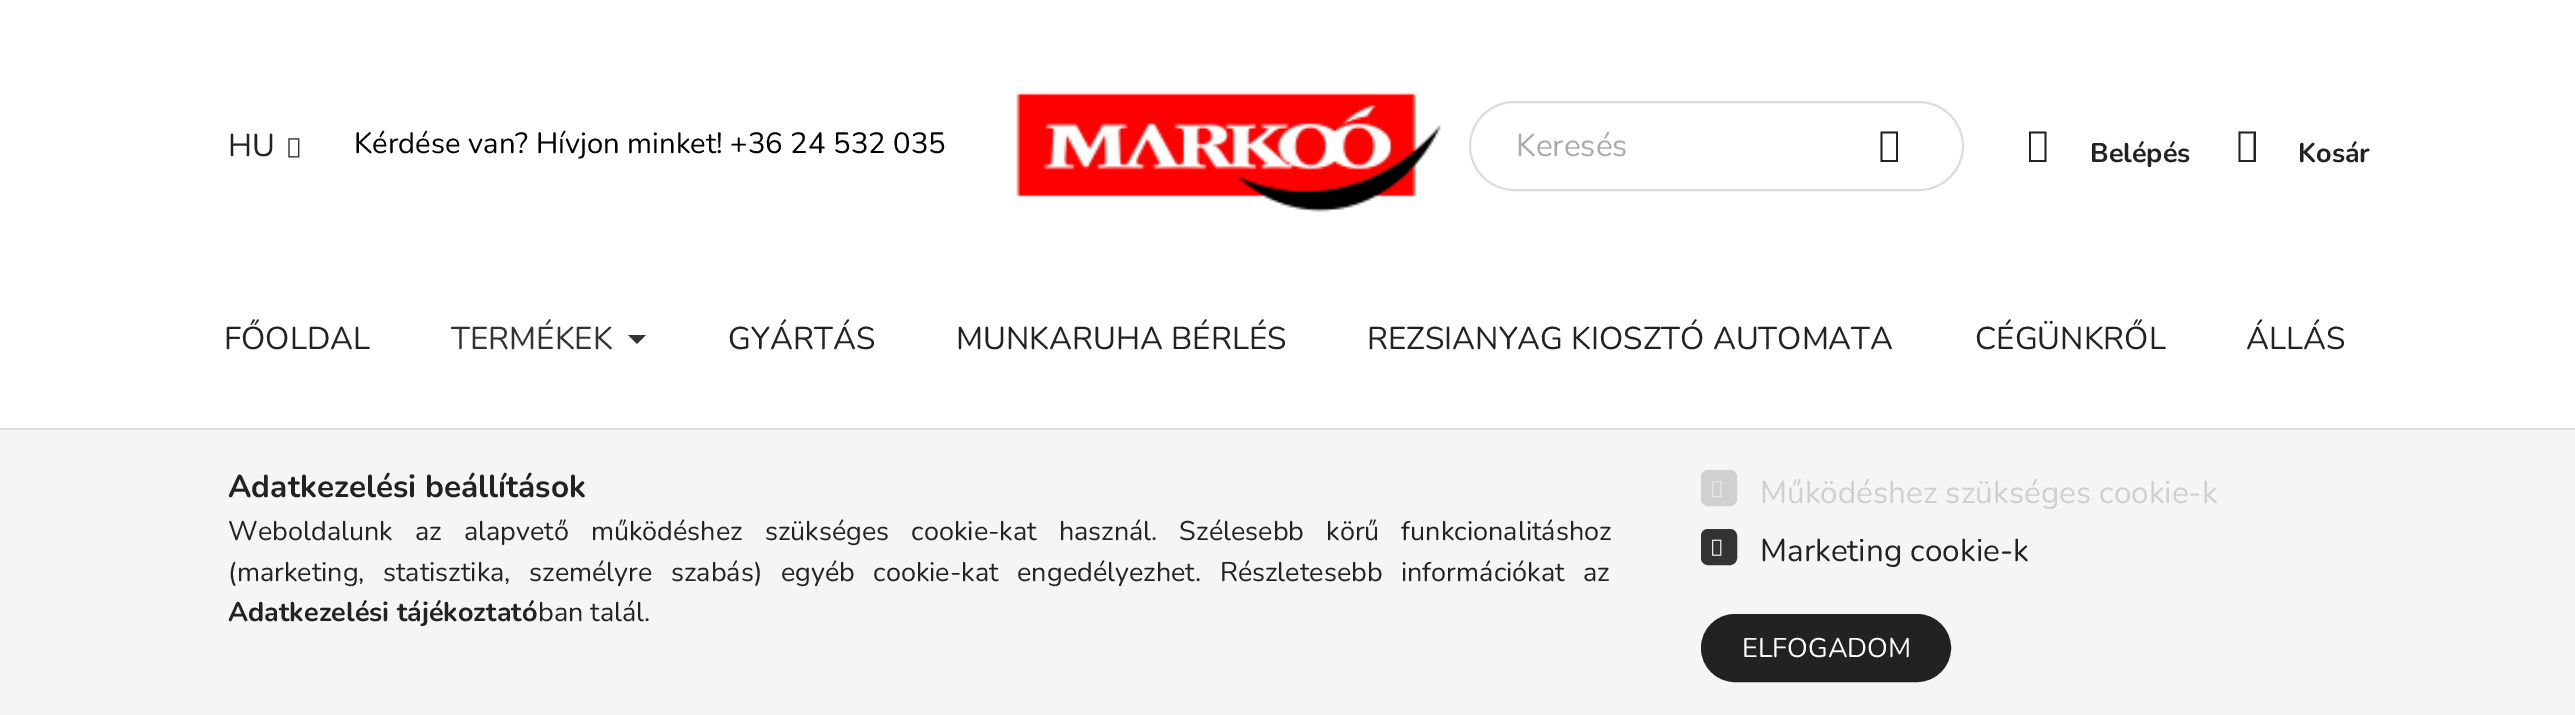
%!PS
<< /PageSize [2575 715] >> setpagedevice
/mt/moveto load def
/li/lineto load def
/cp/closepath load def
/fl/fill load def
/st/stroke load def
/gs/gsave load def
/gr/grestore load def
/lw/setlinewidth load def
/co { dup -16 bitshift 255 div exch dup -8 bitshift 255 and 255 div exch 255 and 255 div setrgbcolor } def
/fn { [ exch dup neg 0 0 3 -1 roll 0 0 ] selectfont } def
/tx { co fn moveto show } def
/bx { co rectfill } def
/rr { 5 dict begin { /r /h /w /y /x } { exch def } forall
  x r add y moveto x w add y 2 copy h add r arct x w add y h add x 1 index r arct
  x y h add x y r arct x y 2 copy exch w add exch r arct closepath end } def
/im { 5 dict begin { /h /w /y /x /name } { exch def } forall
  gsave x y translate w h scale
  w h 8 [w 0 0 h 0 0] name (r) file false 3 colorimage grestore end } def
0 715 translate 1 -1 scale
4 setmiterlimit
0 0 2575 715 16#FFFFFF bx
(media/1.raw) 288 138 12 20 im
(media/2.raw) 1016 91 426 122 im
16#DDDDDD co
2 lw
1470 102 493 88 44 rr st
16#222222 co
1880.5 162 mt 1880.5 131.5 li 1898 131.5 li 1898 162 li cp 1882.5 160 mt 1896 160 li 1896 133.5 li 1882.5 133.5 li cp fl
2029 162 mt 2029 131.5 li 2046.5 131.5 li 2046.5 162 li cp 2031 160 mt 2044.5 160 li 2044.5 133.5 li 2031 133.5 li cp fl
2238.5 162 mt 2238.5 131.5 li 2256 131.5 li 2256 162 li cp 2240.5 160 mt 2253.5 160 li 2253.5 133.5 li 2240.5 133.5 li cp fl
16#333333 co
628 335 mt 646 335 li 637 344 li cp fl
0 430 2575 285 16#F5F5F5 bx
0 428 2575 2 16#DDDDDD bx
16#D0D0D0 co
1702 471 34 34 6 rr gs fl gr
st
(media/3.raw) 1712 481 10 17 im
16#333333 co
1702 530 34 34 6 rr gs fl gr
st
(media/4.raw) 1712 539 10 17 im
16#222222 co
1702 615 248 66 33 rr gs fl gr
st
(HU) 228 156 /Nunito-Regular 31.5 16#222222 tx
(Kérdése van? Hívjon minket! +36 24 532 035) 354 153 /Nunito-Regular 29.25 16#000000 tx
(Keresés) 1516 156 /Nunito-Regular 31.5 16#AAAAAA tx
(Belépés) 2090 162 /Nunito-Bold 27 16#222222 tx
(Kosár) 2298 162 /Nunito-Bold 27 16#222222 tx
(FŐOLDAL) 224 349 /Nunito-Regular 31.5 16#222222 tx
(TERMÉKEK) 451 349 /Nunito-Regular 31.5 16#333333 tx
(GYÁRTÁS) 728 349 /Nunito-Regular 31.5 16#222222 tx
(MUNKARUHA BÉRLÉS) 956 349 /Nunito-Regular 31.5 16#222222 tx
(REZSIANYAG KIOSZTÓ AUTOMATA) 1367 349 /Nunito-Regular 31.5 16#222222 tx
(CÉGÜNKRŐL) 1975 349 /Nunito-Regular 31.5 16#222222 tx
(ÁLLÁS) 2246 349 /Nunito-Regular 31.5 16#222222 tx
(Adatkezelési beállítások) 228 497 /Nunito-Bold 31.5 16#222222 tx
/Nunito-Regular 27 fn
228 540 mt 15 0 32 (Weboldalunk az alapvető működéshez szükséges cookie-kat használ. Szélesebb körű funkcionalitáshoz) widthshow
228 581 mt 11.5 0 32 (\(marketing, statisztika, személyre szabás\) egyéb cookie-kat engedélyezhet. Részletesebb információkat az) widthshow
(Adatkezelési tájékoztató) 228 621 /Nunito-Bold 27 16#222222 tx
(ban talál.) 538 621 /Nunito-Regular 27 16#222222 tx
(Működéshez szükséges cookie-k) 1760 503 /Nunito-Regular 31.5 16#D0D0D0 tx
(Marketing cookie-k) 1760 561 /Nunito-Regular 31.5 16#222222 tx
(ELFOGADOM) 1742 657 /Nunito-Regular 27 16#FFFFFF tx
showpage
